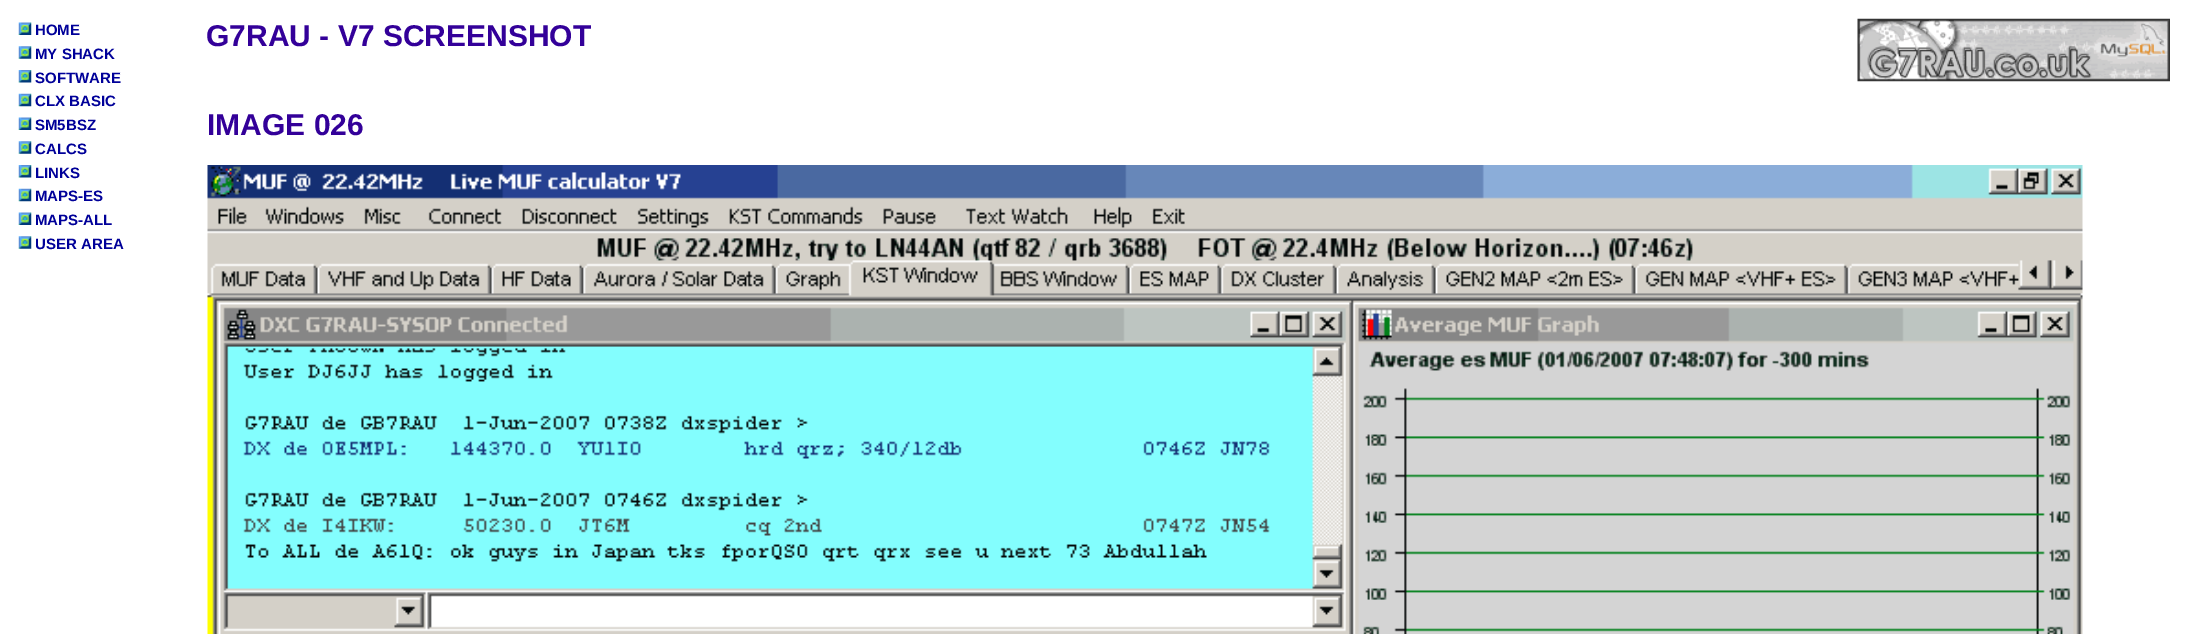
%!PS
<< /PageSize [2188 634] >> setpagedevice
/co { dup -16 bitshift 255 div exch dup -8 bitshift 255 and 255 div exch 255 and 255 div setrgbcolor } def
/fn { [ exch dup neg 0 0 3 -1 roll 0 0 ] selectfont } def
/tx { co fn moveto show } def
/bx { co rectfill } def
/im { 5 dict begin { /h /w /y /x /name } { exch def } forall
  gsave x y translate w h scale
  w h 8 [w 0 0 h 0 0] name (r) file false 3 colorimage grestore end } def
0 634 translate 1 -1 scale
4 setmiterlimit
0 0 2188 634 16#FFFFFF bx
(media/1.raw) 18 22 14 13 im
(media/2.raw) 18 46 14 13 im
(media/3.raw) 18 70 14 13 im
(media/4.raw) 18 93 14 14 im
(media/1.raw) 18 117 14 13 im
(media/2.raw) 18 141 14 13 im
(media/3.raw) 18 165 14 13 im
(media/4.raw) 18 188 14 14 im
(media/1.raw) 18 212 14 13 im
(media/2.raw) 18 236 14 13 im
(media/5.raw) 1857 18 313 64 im
(media/6.raw) 207 165 1876 469 im
(HOME) 35 35 /LiberationSans-Bold 15 16#000099 tx
(MY SHACK) 35 59 /LiberationSans-Bold 15 16#000099 tx
(SOFTWARE) 35 83 /LiberationSans-Bold 15 16#000099 tx
(CLX BASIC) 35 106 /LiberationSans-Bold 15 16#000099 tx
(SM5BSZ) 35 130 /LiberationSans-Bold 15 16#000099 tx
(CALCS) 35 154 /LiberationSans-Bold 15 16#000099 tx
(LINKS) 35 178 /LiberationSans-Bold 15 16#000099 tx
(MAPS-ES) 35 201 /LiberationSans-Bold 15 16#000099 tx
(MAPS-ALL) 35 225 /LiberationSans-Bold 15 16#000099 tx
(USER AREA) 35 249 /LiberationSans-Bold 15 16#000099 tx
(G7RAU - V7 SCREENSHOT) 206 46 /LiberationSans-Bold 30 16#330099 tx
(IMAGE 026) 207 135 /LiberationSans-Bold 30 16#330099 tx
showpage
